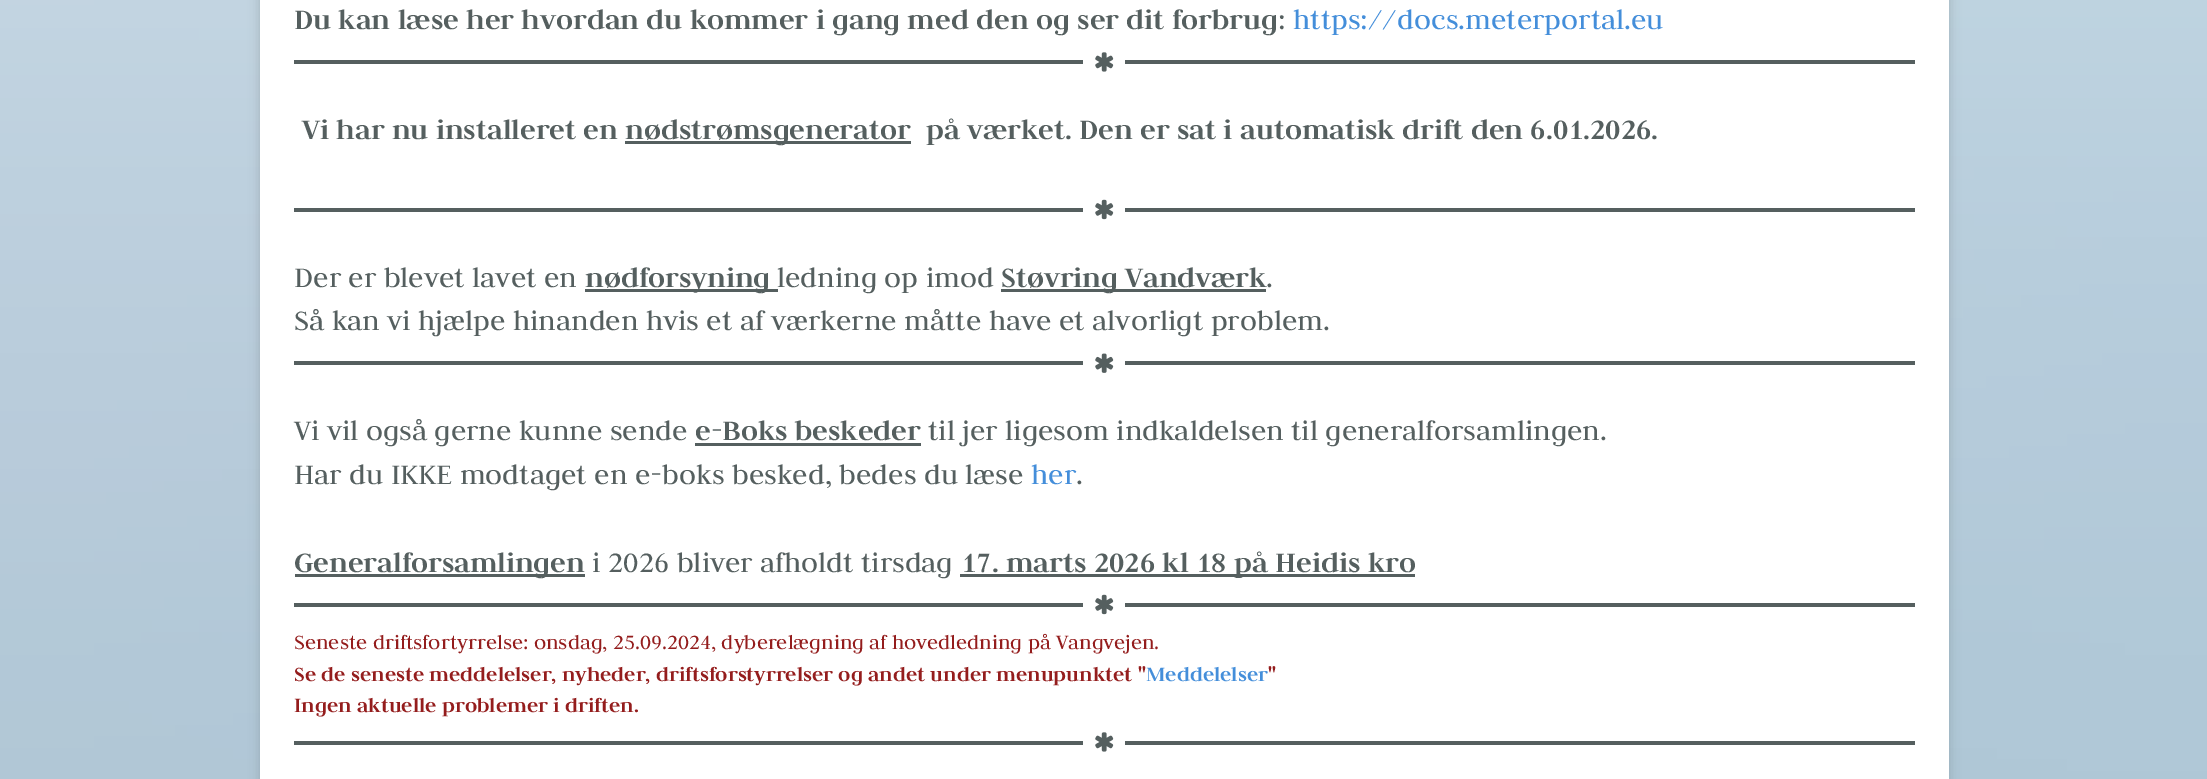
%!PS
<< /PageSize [2207 779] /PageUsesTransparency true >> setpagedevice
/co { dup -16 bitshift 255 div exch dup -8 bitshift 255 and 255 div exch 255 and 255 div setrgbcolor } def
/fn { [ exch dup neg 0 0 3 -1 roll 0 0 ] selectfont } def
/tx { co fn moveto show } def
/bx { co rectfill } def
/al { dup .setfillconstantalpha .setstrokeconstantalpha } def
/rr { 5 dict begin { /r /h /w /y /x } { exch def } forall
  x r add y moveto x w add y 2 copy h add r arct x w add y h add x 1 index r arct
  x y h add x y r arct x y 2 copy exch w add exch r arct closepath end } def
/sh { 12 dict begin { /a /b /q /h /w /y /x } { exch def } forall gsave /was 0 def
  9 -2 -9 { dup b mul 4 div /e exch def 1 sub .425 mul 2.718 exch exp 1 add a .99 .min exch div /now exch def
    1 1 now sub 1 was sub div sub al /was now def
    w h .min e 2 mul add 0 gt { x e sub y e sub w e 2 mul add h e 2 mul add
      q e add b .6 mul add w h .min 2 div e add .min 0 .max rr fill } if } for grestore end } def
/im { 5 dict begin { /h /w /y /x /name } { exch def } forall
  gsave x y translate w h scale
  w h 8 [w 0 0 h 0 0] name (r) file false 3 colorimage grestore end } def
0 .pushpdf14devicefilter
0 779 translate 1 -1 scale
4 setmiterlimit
0 0 2207 779 16#FAFAFA bx
(media/1.raw) 0 0 2207 779 im
16#555F5F co
260 -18 1689 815 0 6 .3 sh
260 0 1689 779 16#FFFFFF bx
294 60 789 4 16#555F5F bx
(media/2.raw) 1095 52 19 20 im
1125 60 790 4 16#555F5F bx
625 141 286 3 16#555F5F bx
294 208 789 4 16#555F5F bx
(media/3.raw) 1095 199 19 21 im
1125 208 790 4 16#555F5F bx
585 289 193 3 16#555F5F bx
1001 289 265 3 16#555F5F bx
294 361 789 4 16#555F5F bx
(media/4.raw) 1095 353 19 20 im
1125 361 790 4 16#555F5F bx
695 443 226 3 16#555F5F bx
295 574 290 3 16#555F5F bx
960 574 455 3 16#555F5F bx
294 603 789 4 16#555F5F bx
(media/3.raw) 1095 594 19 21 im
1125 603 790 4 16#555F5F bx
294 741 789 4 16#555F5F bx
(media/2.raw) 1095 732 19 20 im
1125 741 790 4 16#555F5F bx
(Du kan læse her hvordan du kommer i gang med den og ser dit forbrug) 294 29 /Judson-Bold 31.25 16#555F5F tx
(:) 1278 29 /Judson-Regular 31.25 16#555F5F tx
(https://docs.meterportal.eu) 1293 29 /Judson-Regular 31.25 16#448EDA tx
(Vi har nu installeret en) 302 139 /Judson-Bold 31.25 16#555F5F tx
(nødstrømsgenerator) 625 139 /Judson-Bold 31.25 16#555F5F tx
(på værket. Den er sat i automatisk drift den 6.01.2026.) 926 139 /Judson-Bold 31.25 16#555F5F tx
(Der er blevet lavet en) 294 287 /Judson-Regular 31.25 16#555F5F tx
(nødforsyning) 585 287 /Judson-Bold 31.25 16#555F5F tx
(ledning op imod) 777 287 /Judson-Regular 31.25 16#555F5F tx
(Støvring Vandværk) 1001 287 /Judson-Bold 31.25 16#555F5F tx
(.) 1266 287 /Judson-Regular 31.25 16#555F5F tx
(Så kan vi hjælpe hinanden hvis et af værkerne måtte have et alvorligt problem.) 294 330 /Judson-Regular 31.25 16#555F5F tx
(Vi vil også gerne kunne sende) 294 440 /Judson-Regular 31.25 16#555F5F tx
(e-Boks beskeder) 695 440 /Judson-Bold 31.25 16#555F5F tx
(til jer ligesom indkaldelsen til generalforsamlingen.) 928 440 /Judson-Regular 31.25 16#555F5F tx
(Har du IKKE modtaget en e-boks besked, bedes du læse) 294 484 /Judson-Regular 31.25 16#555F5F tx
(her) 1031 484 /Judson-Regular 31.25 16#448EDA tx
(.) 1076 484 /Judson-Regular 31.25 16#555F5F tx
(Generalforsamlingen) 294 572 /Judson-Bold 31.25 16#555F5F tx
(i 2026 bliver afholdt tirsdag) 592 572 /Judson-Regular 31.25 16#555F5F tx
(17. marts 2026 kl 18 på Heidis kro) 961 572 /Judson-Bold 31.25 16#555F5F tx
(Seneste driftsfortyrrelse: onsdag, 25.09.2024, dyberelægning af hovedledning på Vangvejen.) 294 649 /Judson-Regular 22.5 16#941D1D tx
(Se de seneste meddelelser, nyheder, driftsforstyrrelser og andet under menupunktet ") 294 681 /Judson-Bold 22.5 16#941D1D tx
(Meddelelser) 1146 681 /Judson-Bold 22.5 16#448EDA tx
(") 1268 681 /Judson-Bold 22.5 16#941D1D tx
(Ingen aktuelle problemer i driften.) 294 712 /Judson-Bold 22.5 16#941D1D tx
.poppdf14devicefilter showpage
